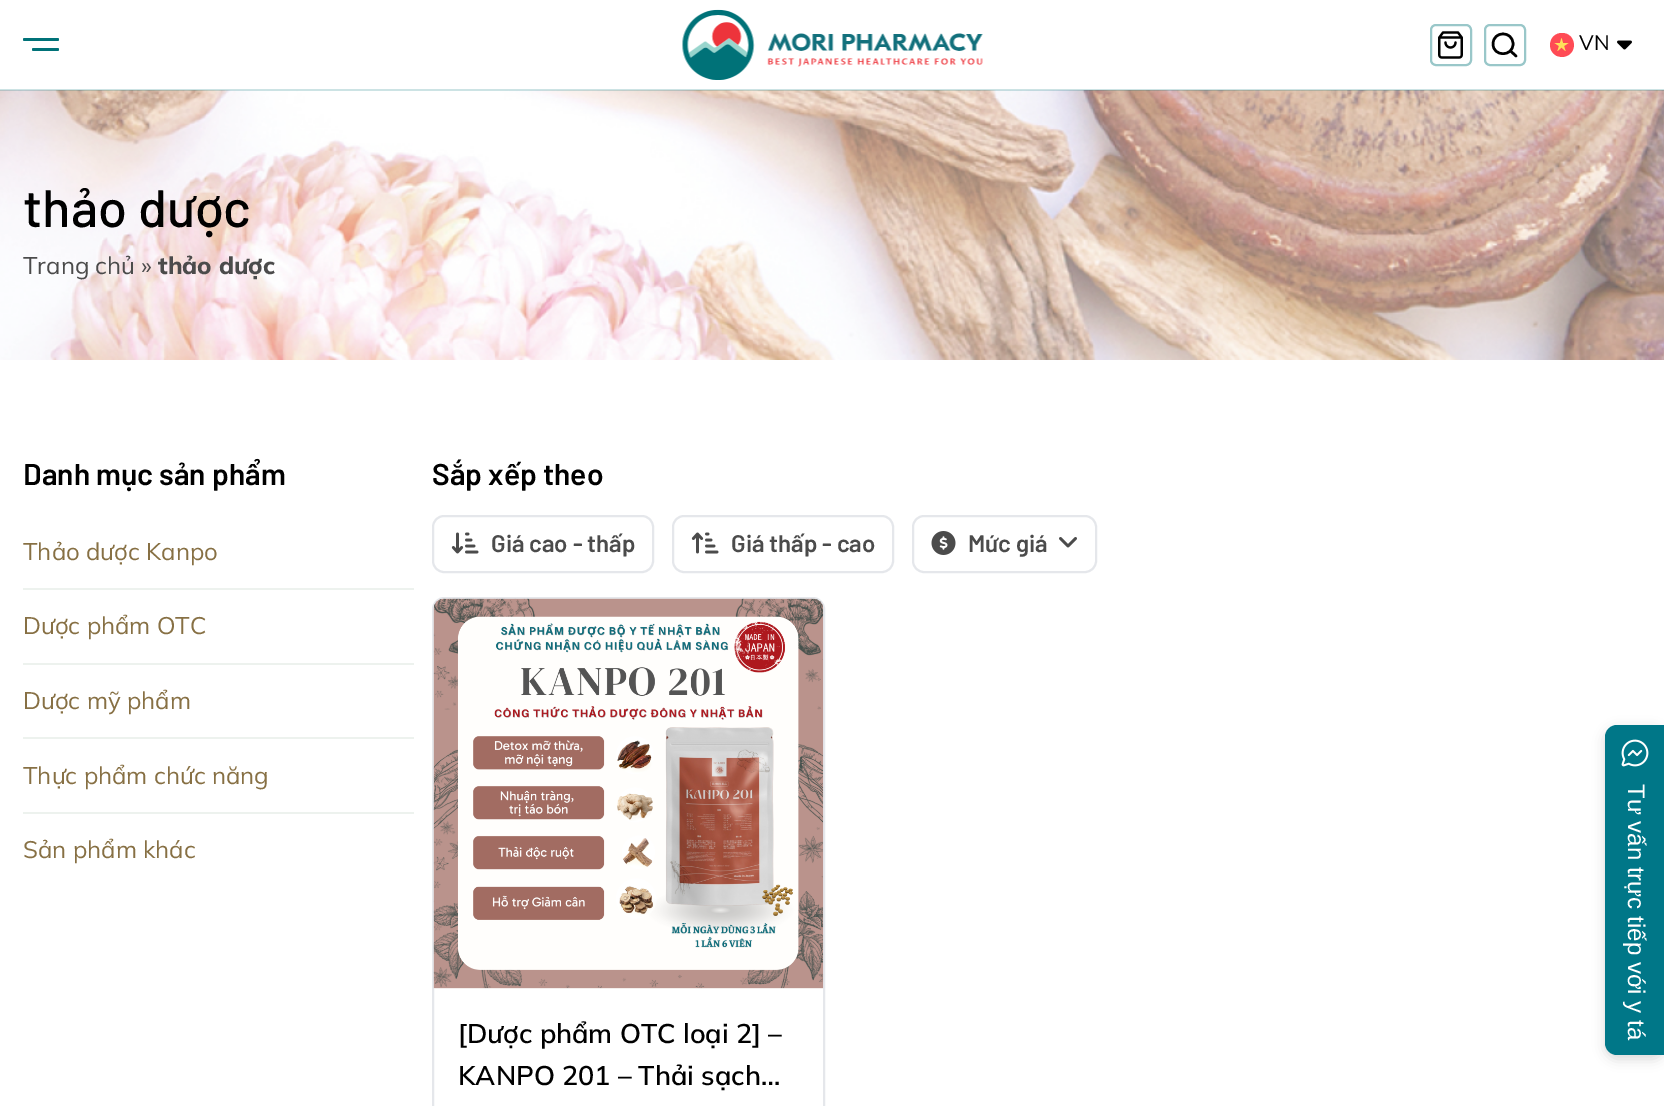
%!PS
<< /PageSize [1664 1106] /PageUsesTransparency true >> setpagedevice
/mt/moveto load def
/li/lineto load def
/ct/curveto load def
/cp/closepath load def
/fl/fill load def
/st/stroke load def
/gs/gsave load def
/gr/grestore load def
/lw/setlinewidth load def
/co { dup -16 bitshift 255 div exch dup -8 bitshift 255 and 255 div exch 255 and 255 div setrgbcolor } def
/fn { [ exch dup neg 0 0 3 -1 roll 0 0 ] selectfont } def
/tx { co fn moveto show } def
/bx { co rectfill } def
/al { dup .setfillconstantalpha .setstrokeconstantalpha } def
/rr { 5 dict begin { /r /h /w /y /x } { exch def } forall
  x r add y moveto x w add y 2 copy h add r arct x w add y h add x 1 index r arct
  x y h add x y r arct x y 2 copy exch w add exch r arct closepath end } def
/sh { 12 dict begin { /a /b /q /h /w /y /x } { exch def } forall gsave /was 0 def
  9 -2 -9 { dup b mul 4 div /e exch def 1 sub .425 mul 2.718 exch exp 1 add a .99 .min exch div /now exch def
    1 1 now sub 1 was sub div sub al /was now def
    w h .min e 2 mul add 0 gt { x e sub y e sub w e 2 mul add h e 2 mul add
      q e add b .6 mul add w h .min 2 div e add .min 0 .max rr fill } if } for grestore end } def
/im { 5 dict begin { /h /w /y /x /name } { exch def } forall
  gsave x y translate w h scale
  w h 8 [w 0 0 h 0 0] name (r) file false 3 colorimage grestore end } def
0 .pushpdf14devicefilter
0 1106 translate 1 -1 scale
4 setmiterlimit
0 0 1664 1106 16#FFFFFF bx
(media/4.raw) 0 90 1664 270 im
0.2 al
0 89 1664 2 16#007278 bx
1 al
23 38 36 3 1.5 rr fl
32 48 27 3 1.5 rr fl
(media/1.raw) 682 9 301 71 im
16#99C7C9 co
2 lw
1431 25 40 40 5 rr st
(media/2.raw) 1438 31 25 28 im
1485 25 40 40 5 rr st
16#000000 co
2.5 lw
1 setlinecap
1 setlinejoin
1516 56 mt 1510.5 51 li 1513 44 mt 1513 57 1493 57 1493 44 ct 1493 30.5 1513 30.5 1513 44 ct cp st
16#FF4B55 co
1562 33 mt 1577 33 1578.5 55.5 1562.5 57 ct 1560.5 57 1558.5 56.5 1557 56 ct 1545.5 50.5 1549 33 1562 33 ct cp fl
16#FFE15A co
1564 46 mt 1568.5 43 li 1563 43 li 1561.5 38 li 1560 43 li 1554.5 43 li 1559 46 li 1557.5 51 li 1561.5 47.5 li 1565.5 51 li cp fl
(media/3.raw) 1617 40 15 10 im
23 588 391 2 16#EDF2EE bx
23 663 391 2 16#EDF2EE bx
23 737 391 2 16#EDF2EE bx
23 812 391 2 16#EDF2EE bx
16#E5E7EB co
2 lw
0 setlinecap
0 setlinejoin
433 516 220 56 11 rr st
(media/5.raw) 451 532 28 22 im
673 516 220 56 11 rr st
(media/6.raw) 691 532 28 22 im
913 516 183 56 11 rr st
(media/7.raw) 931 531 25 24 im
(media/8.raw) 1059 537 18 11 im
433 598 391 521 11 rr st
(media/9.raw) 433 598 391 391 im
16#000000 co
1605 729 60 330 12 6 .15 sh
16#007788 co
1617 725 mt 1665 725 li 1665 1055 li 1617 1055 li 1610.5 1055 1605 1049.5 1605 1043 ct 1605 737 li 1605 730.5 1610.5 725 1617 725 ct cp fl
(media/10.raw) 1621 739 28 28 im
(VN) 1579 50 /Mulish-Regular 21 16#000000 tx
(thảo dược) 23 227 /Barlow-Medium 52.5 16#000000 tx
(Trang chủ ») 23 274 /Mulish-Regular 24 16#4B4B4B tx
(thảo dược) 158 274 /Mulish-ExtraBold 24 16#4B4B4B tx
(Danh mục sản phẩm) 23 485 /Barlow-SemiBold 30 16#000000 tx
(Thảo dược Kanpo) 23 560 /Mulish-Regular 24 16#877044 tx
(Dược phẩm OTC) 23 634 /Mulish-Regular 24 16#877044 tx
(Dược mỹ phẩm) 23 709 /Mulish-Regular 24 16#877044 tx
(Thực phẩm chức năng) 23 784 /Mulish-Regular 24 16#877044 tx
(Sản phẩm khác) 23 858 /Mulish-Regular 24 16#877044 tx
(Sắp xếp theo) 432 485 /Barlow-SemiBold 30 16#000000 tx
(Giá cao - thấp) 491 552 /Barlow-SemiBold 24 16#4B4B4B tx
(Giá thấp - cao) 731 552 /Barlow-SemiBold 24 16#4B4B4B tx
(Mức giá) 968 552 /Barlow-SemiBold 24 16#4B4B4B tx
([Dược phẩm OTC loại 2] –) 458 1043 /Mulish-SemiBold 27 16#000000 tx
(KANPO 201 – Thải sạch…) 458 1085 /Mulish-SemiBold 27 16#000000 tx
/LiberationSans-Regular 24 fn
16#FFFFFF co
gs 1628 784 translate 90 rotate 0 0 mt (Tư vấn trực tiếp với y tá) show gr
.poppdf14devicefilter showpage
